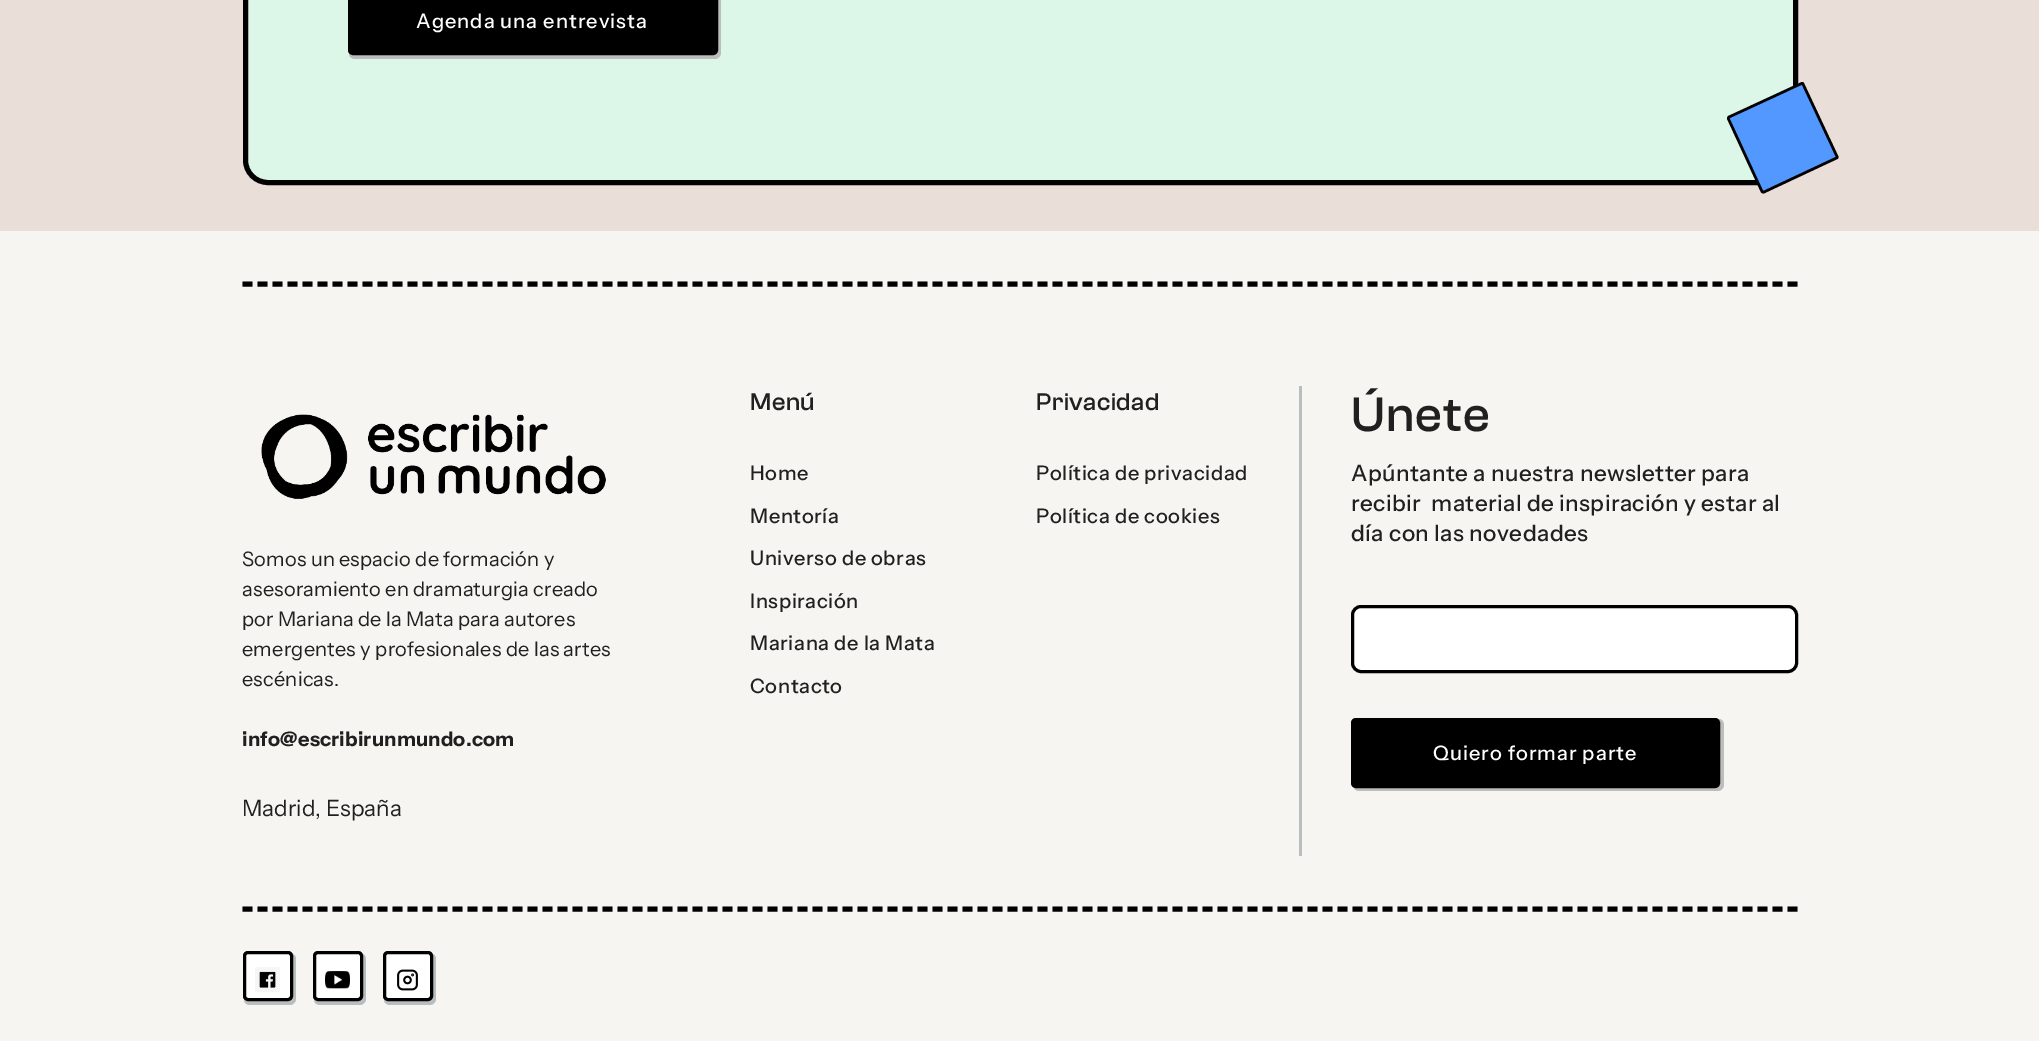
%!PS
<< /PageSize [2039 1041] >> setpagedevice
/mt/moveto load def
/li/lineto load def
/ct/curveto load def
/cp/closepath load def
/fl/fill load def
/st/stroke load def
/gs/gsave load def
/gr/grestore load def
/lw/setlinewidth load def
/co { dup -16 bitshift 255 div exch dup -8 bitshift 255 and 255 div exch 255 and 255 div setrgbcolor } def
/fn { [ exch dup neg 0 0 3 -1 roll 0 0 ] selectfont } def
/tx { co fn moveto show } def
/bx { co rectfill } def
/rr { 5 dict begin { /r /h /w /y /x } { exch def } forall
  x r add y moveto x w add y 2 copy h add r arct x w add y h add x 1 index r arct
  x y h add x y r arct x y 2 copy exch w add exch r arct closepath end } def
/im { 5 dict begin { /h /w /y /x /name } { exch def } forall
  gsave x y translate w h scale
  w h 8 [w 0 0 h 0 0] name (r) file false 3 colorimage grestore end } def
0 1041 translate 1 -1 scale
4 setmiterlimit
0 0 2039 1041 16#F6F5F1 bx
0 0 2039 231 16#EADFD8 bx
16#DCF7E7 co
245.5 -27.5 1550 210 22.5 rr gs fl gr
16#000000 co
5 lw
st
16#BDBDBD co
349 54 mt 349 57 352 59 355 59 ct 715 59 li 718 59 721 56 721 53 ct 721 -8 li 721 -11 719 -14 716 -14 ct 717 -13 718 -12 718 -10 ct 718 50 li 718 53 715 55 712 55 ct 352 55 li 351 55 350 54 349 54 ct cp fl
16#000000 co
349.5 -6.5 367 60 3.5 rr gs fl gr
3 lw
st
16#5398FF co
1729 117 mt 1802 83 li 1802 83 1803 83 1803 84 ct 1837 157 li 1837 157 1837 158 1836 158 ct 1764 192 li 1763 192 1763 192 1762 191 ct 1728 119 li 1728 118 1728 118 1729 117 ct cp fl
16#000000 co
2.5 lw
1729 117 mt 1801.5 83.5 li 1802 83 1803 83.5 1803 84 ct 1837 156.5 li 1837.5 157 1837 158 1836.5 158 ct 1764 192 li 1763.5 192.5 1762.5 192 1762 191.5 ct 1728.5 119 li 1728 118.5 1728.5 117.5 1729 117 ct cp st
5 lw
[10 5] 0 setdash
242.5 284 mt 1797.5 284 li st
242.5 909 mt 1797.5 909 li st
(media/1.raw) 261 414 345 85 im
1299 386 3 470 16#B8BDC0 bx
16#FFFFFF co
1352.5 606.5 444 65 8.5 rr gs fl gr
16#000000 co
3 lw
[] 0 setdash
st
16#BDBDBD co
1353 786 mt 1354 789 1356 791 1359 791 ct 1718 791 li 1721 791 1724 788 1724 785 ct 1724 725 li 1724 722 1722 719 1719 719 ct 1719 720 1720 721 1720 722 ct 1720 782 li 1720 785 1718 788 1715 788 ct 1356 788 li 1355 788 1354 787 1353 786 ct cp fl
16#000000 co
1352.5 719.5 366 67 3.5 rr gs fl gr
st
16#B8BDC0 co
244 1000 mt 244 1003 247 1005 250 1005 ct 290 1005 li 293 1005 296 1002 296 999 ct 296 959 li 296 956 294 954 291 953 ct 292 954 292 955 292 956 ct 292 996 li 292 999 290 1001 288 1001 ct 248 1001 li 246 1001 245 1001 244 1000 ct cp fl
16#FFFFFF co
244.5 952.5 47 47 3.5 rr gs fl gr
16#000000 co
st
(media/2.raw) 255 967 25 26 im
16#B8BDC0 co
314 1000 mt 314 1003 317 1005 320 1005 ct 360 1005 li 363 1005 366 1002 366 999 ct 366 959 li 366 956 364 954 361 953 ct 362 954 362 955 362 956 ct 362 996 li 362 999 360 1001 358 1001 ct 318 1001 li 316 1001 315 1001 314 1000 ct cp fl
16#FFFFFF co
314.5 952.5 47 47 3.5 rr gs fl gr
16#000000 co
st
(media/3.raw) 325 971 25 18 im
16#B8BDC0 co
384 1000 mt 384 1003 387 1005 390 1005 ct 430 1005 li 433 1005 436 1002 436 999 ct 436 959 li 436 956 434 954 431 953 ct 432 954 432 955 432 956 ct 432 996 li 432 999 430 1001 428 1001 ct 388 1001 li 386 1001 385 1001 384 1000 ct cp fl
16#FFFFFF co
384.5 952.5 47 47 3.5 rr gs fl gr
16#000000 co
st
(media/4.raw) 397 969 21 22 im
/InstrumentSans-Medium 20 fn
16#FFFFFF co
416 28 mt 1 0 (Agenda una entrevista) ashow
/InstrumentSans-Regular 20 fn
16#202020 co
242 566 mt .2 0 (Somos un espacio de formación y) ashow
242 596 mt .2 0 (asesoramiento en dramaturgia creado) ashow
242 626 mt .2 0 (por Mariana de la Mata para autores) ashow
242 656 mt .2 0 (emergentes y profesionales de las artes) ashow
242 686 mt .2 0 (escénicas.) ashow
/InstrumentSans-Bold 20 fn
242 746 mt .2 0 (info@escribirunmundo.com) ashow
(Madrid, España) 242 816 /InstrumentSans-Regular 22.5 16#202020 tx
/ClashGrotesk-Medium 25 fn
750 410 mt .5 0 (Menú) ashow
/InstrumentSans-Medium 20 fn
750 480 mt .6 0 (Home) ashow
750 523 mt .6 0 (Mentoría) ashow
750 565 mt .6 0 (Universo de obras) ashow
750 608 mt .6 0 (Inspiración) ashow
750 650 mt .6 0 (Mariana de la Mata) ashow
750 693 mt .6 0 (Contacto) ashow
/ClashGrotesk-Medium 25 fn
1036 410 mt .5 0 (Privacidad) ashow
/InstrumentSans-Medium 20 fn
1036 480 mt .6 0 (Política de privacidad) ashow
1036 523 mt .6 0 (Política de cookies) ashow
/ClashGrotesk-Medium 50 fn
1351 431 mt 1 0 (Únete) ashow
/InstrumentSans-Medium 22.5 fn
1351 481 mt .45 0 (Apúntante a nuestra newsletter para) ashow
1351 511 mt .45 0 (recibir  material de inspiración y estar al) ashow
1351 541 mt .45 0 (día con las novedades) ashow
/InstrumentSans-Medium 20 fn
16#FFFFFF co
1433 760 mt 1 0 (Quiero formar parte) ashow
showpage
